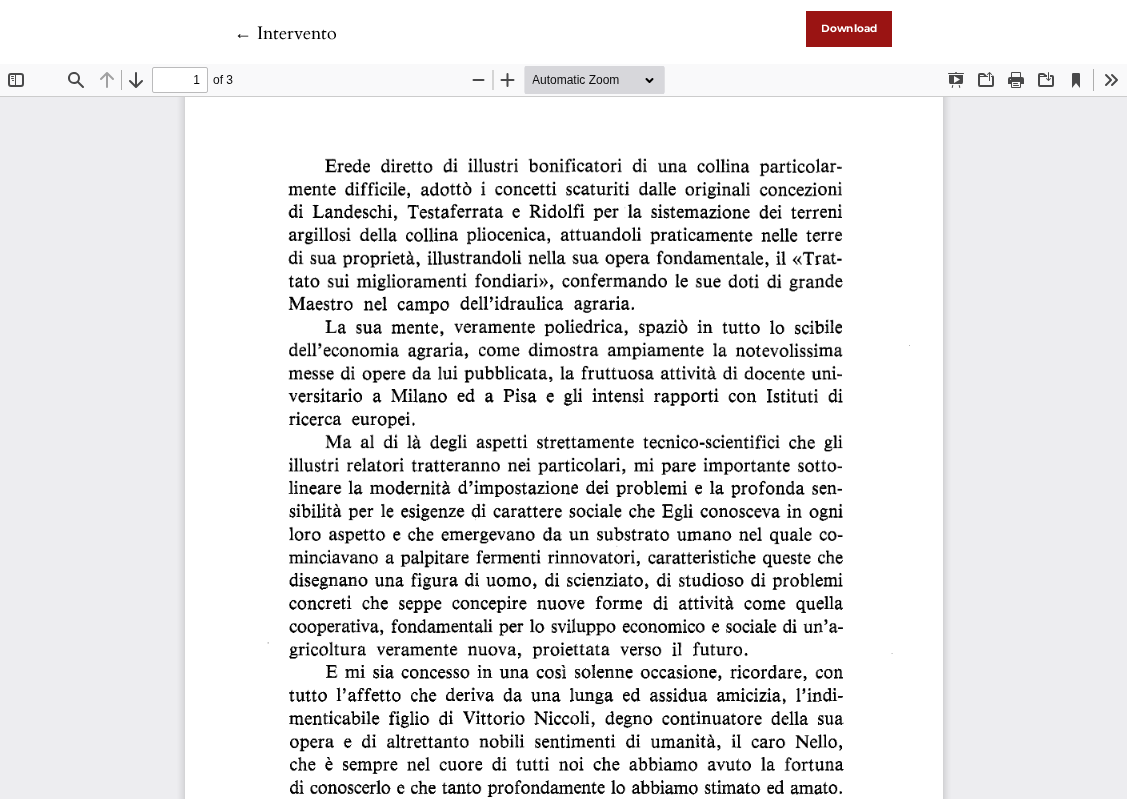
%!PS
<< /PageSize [1127 799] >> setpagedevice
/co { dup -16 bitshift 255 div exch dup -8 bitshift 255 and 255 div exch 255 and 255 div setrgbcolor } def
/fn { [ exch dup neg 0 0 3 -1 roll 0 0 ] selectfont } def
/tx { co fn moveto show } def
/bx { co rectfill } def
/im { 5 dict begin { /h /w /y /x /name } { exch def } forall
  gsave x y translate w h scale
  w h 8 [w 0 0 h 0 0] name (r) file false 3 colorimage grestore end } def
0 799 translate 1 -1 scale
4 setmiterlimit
0 0 1127 799 16#FFFFFF bx
806 11 86 36 16#9A1413 bx
(media/1.raw) 0 64 1127 735 im
(←) 234 39 /LiberationSerif-Regular 18 16#000000 tx
(Intervento) 257 39 /Cardo-Regular 18 16#000000 tx
(Download) 821 32 /Montserrat-Bold 10.5 16#FFFFFF tx
showpage
